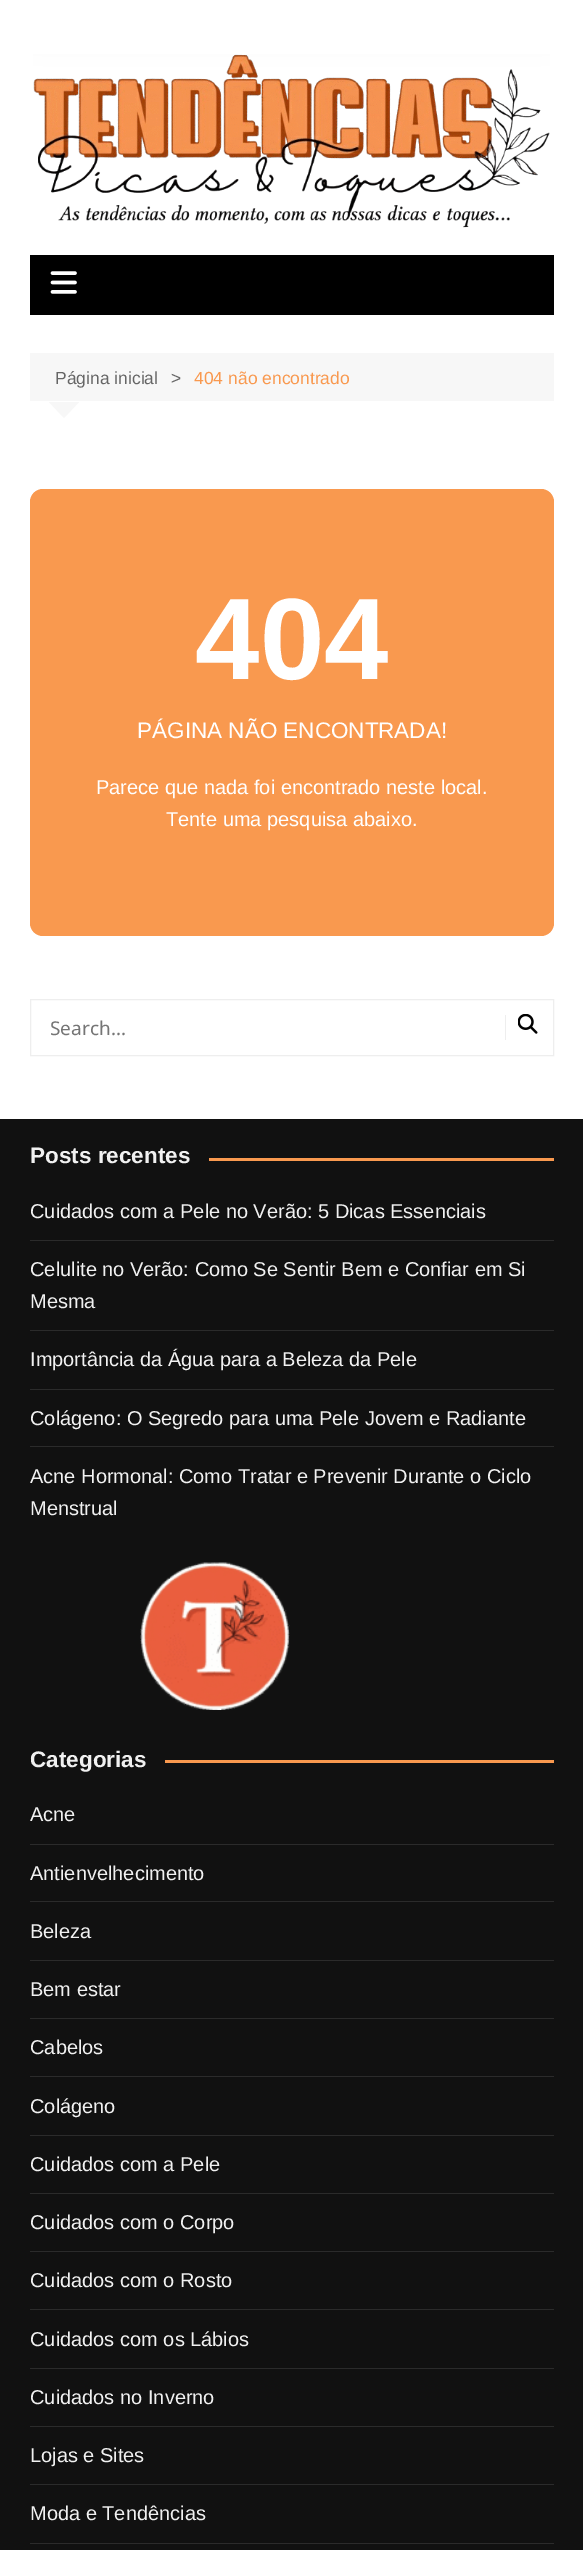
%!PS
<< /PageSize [583 2550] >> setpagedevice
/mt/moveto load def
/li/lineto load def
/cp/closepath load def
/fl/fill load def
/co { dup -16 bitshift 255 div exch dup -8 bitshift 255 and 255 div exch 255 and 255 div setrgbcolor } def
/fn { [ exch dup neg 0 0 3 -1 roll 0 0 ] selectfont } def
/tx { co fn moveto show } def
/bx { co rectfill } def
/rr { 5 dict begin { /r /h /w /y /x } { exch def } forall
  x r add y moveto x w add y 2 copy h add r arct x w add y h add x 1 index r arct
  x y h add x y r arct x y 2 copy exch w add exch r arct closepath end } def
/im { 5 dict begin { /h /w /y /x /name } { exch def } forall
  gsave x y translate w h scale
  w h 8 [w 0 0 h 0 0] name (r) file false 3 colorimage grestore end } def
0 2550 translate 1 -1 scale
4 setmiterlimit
0 0 583 2550 16#FFFFFF bx
(media/1.raw) 33 54 517 174 im
30 255 524 60 16#000000 bx
(media/2.raw) 50 271 27 23 im
30 353 524 48 16#F7F7F7 bx
49 402 mt 79 402 li 64 418 li cp fl
16#F9994F co
30 489 524 447 13 rr fl
16#EEEEEE co
30.5 999.5 523 56 rectstroke
505 1015 1 25 16#EEEEEE bx
(media/3.raw) 518 1014 20 20 im
0 1119 583 1431 16#111111 bx
209 1158 345 3 16#F9994F bx
30 1240 524 1 16#2B2B2B bx
30 1330 524 1 16#2B2B2B bx
30 1389 524 1 16#2B2B2B bx
30 1446 524 1 16#2B2B2B bx
(media/4.raw) 140 1562 150 148 im
165 1760 389 3 16#F9994F bx
30 1844 524 1 16#2B2B2B bx
30 1901 524 1 16#2B2B2B bx
30 1960 524 1 16#2B2B2B bx
30 2018 524 1 16#2B2B2B bx
30 2076 524 1 16#2B2B2B bx
30 2135 524 1 16#2B2B2B bx
30 2193 524 1 16#2B2B2B bx
30 2251 524 1 16#2B2B2B bx
30 2309 524 1 16#2B2B2B bx
30 2368 524 1 16#2B2B2B bx
30 2426 524 1 16#2B2B2B bx
30 2484 524 1 16#2B2B2B bx
30 2543 524 1 16#2B2B2B bx
(Página inicial) 55 384 /LiberationSans-Regular 17.5 16#666666 tx
(>) 171 384 /LiberationSans-Regular 17.5 16#666666 tx
(404 não encontrado) 194 384 /LiberationSans-Regular 17.5 16#F9994F tx
(404) 195 679 /LiberationSans-Bold 116 16#FFFFFF tx
(PÁGINA NÃO ENCONTRADA!) 137 738 /LiberationSans-Regular 22.5 16#FFFFFF tx
(Parece que nada foi encontrado neste local.) 96 794 /LiberationSans-Regular 20 16#FFFFFF tx
(Tente uma pesquisa abaixo.) 166 826 /LiberationSans-Regular 20 16#FFFFFF tx
(Search...) 50 1035 /NotoSans-Regular 19 16#757575 tx
(Posts recentes) 30 1163 /LiberationSans-Bold 22.5 16#F1F1F1 tx
(Cuidados com a Pele no Verão: 5 Dicas Essenciais) 30 1218 /LiberationSans-Regular 20 16#F1F1F1 tx
(Celulite no Verão: Como Se Sentir Bem e Confiar em Si) 30 1276 /LiberationSans-Regular 20 16#F1F1F1 tx
(Mesma) 30 1308 /LiberationSans-Regular 20 16#F1F1F1 tx
(Importância da Água para a Beleza da Pele) 30 1366 /LiberationSans-Regular 20 16#F1F1F1 tx
(Colágeno: O Segredo para uma Pele Jovem e Radiante) 30 1425 /LiberationSans-Regular 20 16#F1F1F1 tx
(Acne Hormonal: Como Tratar e Prevenir Durante o Ciclo) 30 1483 /LiberationSans-Regular 20 16#F1F1F1 tx
(Menstrual) 30 1515 /LiberationSans-Regular 20 16#F1F1F1 tx
(Categorias) 30 1767 /LiberationSans-Bold 22.5 16#F1F1F1 tx
(Acne) 30 1821 /LiberationSans-Regular 20 16#F1F1F1 tx
(Antienvelhecimento) 30 1880 /LiberationSans-Regular 20 16#F1F1F1 tx
(Beleza) 30 1938 /LiberationSans-Regular 20 16#F1F1F1 tx
(Bem estar) 30 1996 /LiberationSans-Regular 20 16#F1F1F1 tx
(Cabelos) 30 2054 /LiberationSans-Regular 20 16#F1F1F1 tx
(Colágeno) 30 2113 /LiberationSans-Regular 20 16#F1F1F1 tx
(Cuidados com a Pele) 30 2171 /LiberationSans-Regular 20 16#F1F1F1 tx
(Cuidados com o Corpo) 30 2229 /LiberationSans-Regular 20 16#F1F1F1 tx
(Cuidados com o Rosto) 30 2287 /LiberationSans-Regular 20 16#F1F1F1 tx
(Cuidados com os Lábios) 30 2346 /LiberationSans-Regular 20 16#F1F1F1 tx
(Cuidados no Inverno) 30 2404 /LiberationSans-Regular 20 16#F1F1F1 tx
(Lojas e Sites) 30 2462 /LiberationSans-Regular 20 16#F1F1F1 tx
(Moda e Tendências) 30 2520 /LiberationSans-Regular 20 16#F1F1F1 tx
showpage
